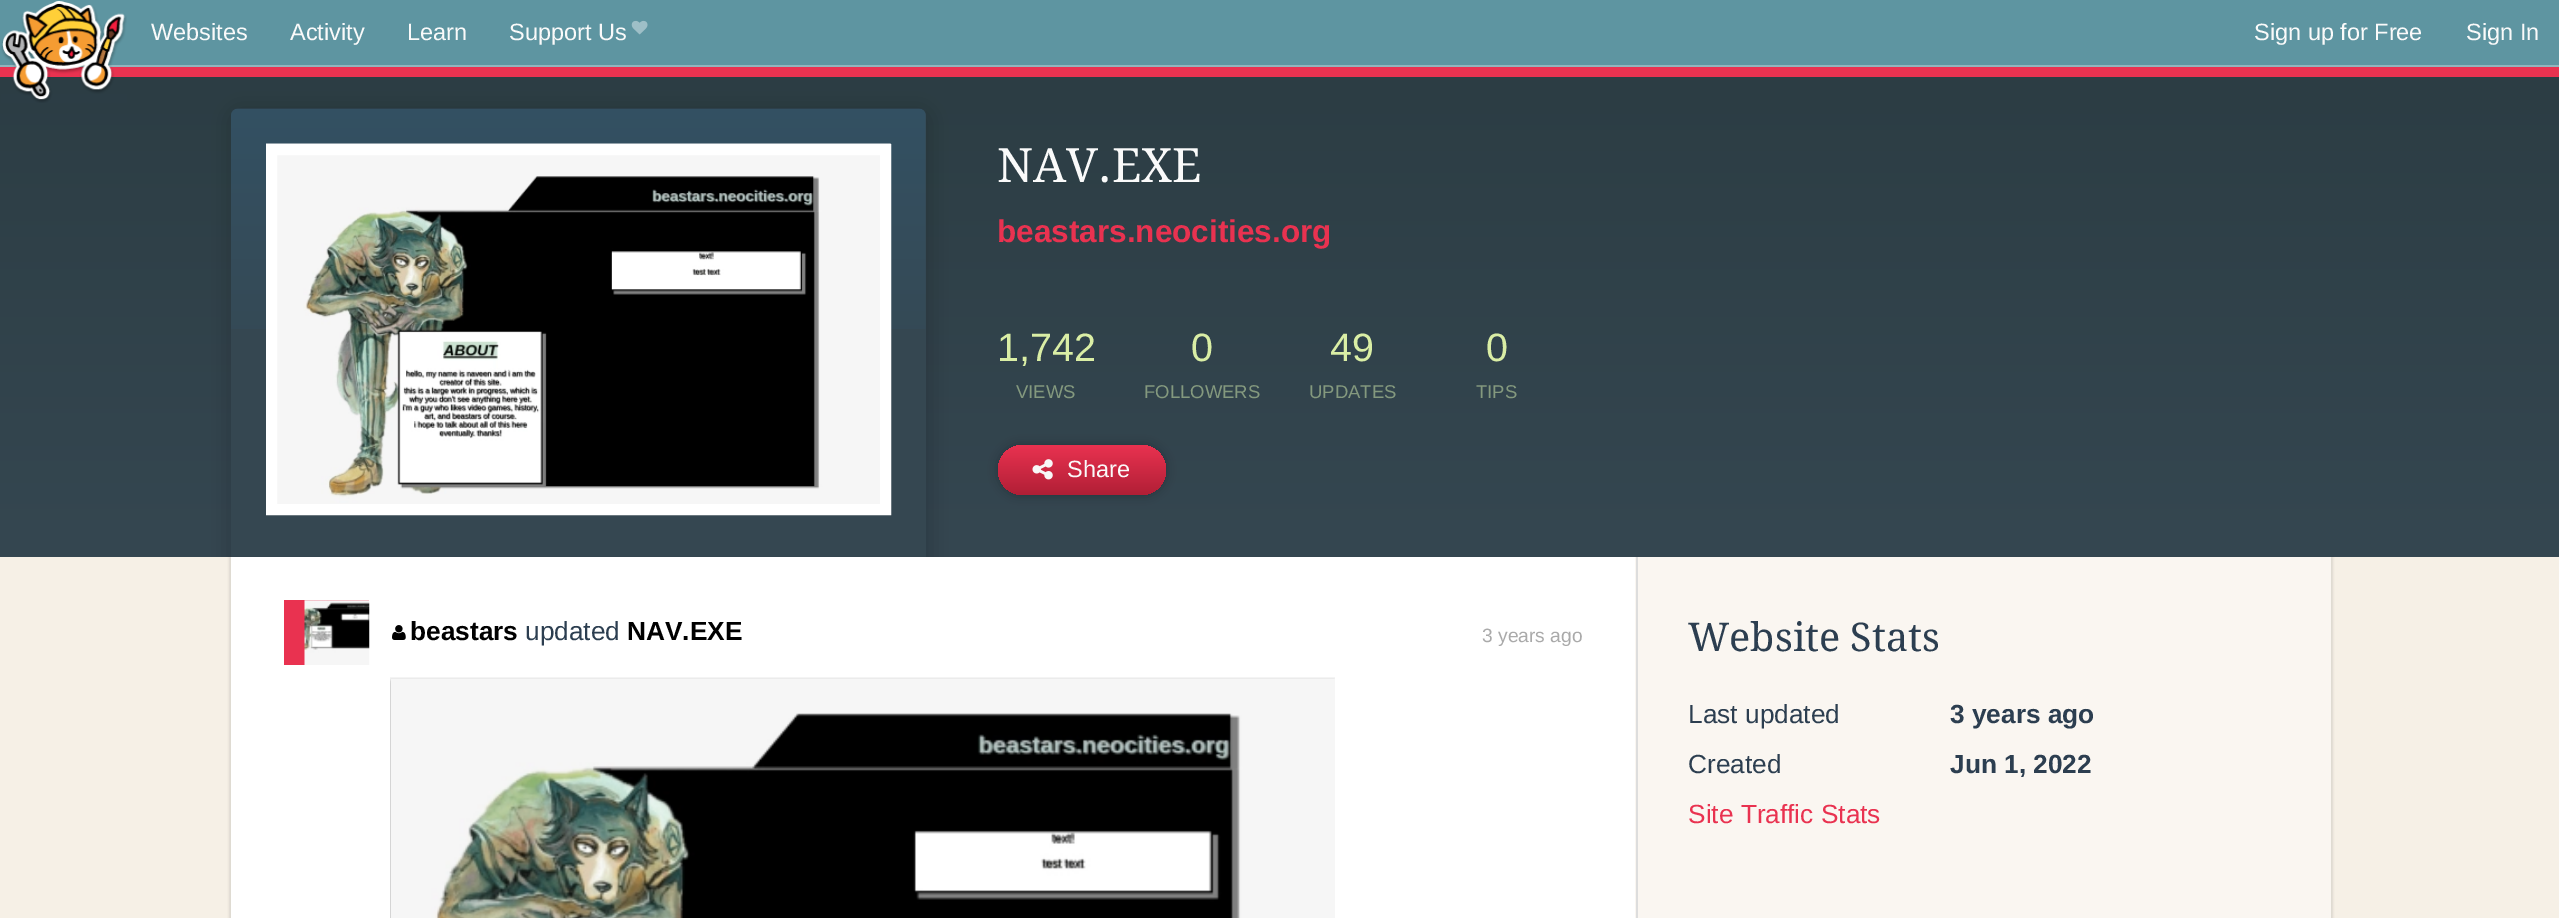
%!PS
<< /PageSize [2559 918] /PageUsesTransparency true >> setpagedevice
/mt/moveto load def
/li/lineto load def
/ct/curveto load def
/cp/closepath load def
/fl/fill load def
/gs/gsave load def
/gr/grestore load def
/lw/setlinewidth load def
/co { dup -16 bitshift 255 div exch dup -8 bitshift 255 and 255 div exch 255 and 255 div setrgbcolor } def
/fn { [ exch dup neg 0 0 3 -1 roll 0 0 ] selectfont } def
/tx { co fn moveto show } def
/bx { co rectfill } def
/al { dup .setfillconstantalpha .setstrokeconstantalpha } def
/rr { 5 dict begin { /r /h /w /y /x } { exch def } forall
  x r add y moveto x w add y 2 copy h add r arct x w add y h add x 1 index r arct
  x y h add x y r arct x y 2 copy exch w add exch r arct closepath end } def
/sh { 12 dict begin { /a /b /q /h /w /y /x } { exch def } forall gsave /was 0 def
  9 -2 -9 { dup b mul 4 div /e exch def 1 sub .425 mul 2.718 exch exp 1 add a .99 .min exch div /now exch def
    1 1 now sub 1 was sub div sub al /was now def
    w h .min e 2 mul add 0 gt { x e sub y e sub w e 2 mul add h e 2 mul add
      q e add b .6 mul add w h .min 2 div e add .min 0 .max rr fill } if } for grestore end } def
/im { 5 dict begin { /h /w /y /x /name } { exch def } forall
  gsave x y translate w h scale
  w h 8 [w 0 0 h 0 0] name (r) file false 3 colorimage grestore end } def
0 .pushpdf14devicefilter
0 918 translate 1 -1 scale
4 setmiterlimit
0 0 2559 918 16#F6F0E6 bx
gs 0 77 mt 2559 77 li 2559 557 li 0 557 li cp clip newpath
<< /ShadingType 2 /ColorSpace /DeviceRGB /Coords [1280 38 1280 557] /Extend [true true] /Function << /FunctionType 2 /Domain [0 1] /C0 [.169 .235 .263] /C1 [.208 .278 .318] /N 1 >> >> shfill gr
gs
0 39 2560 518 rectclip
16#000000 co
229 109 702 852 11 10.5 .15 sh
gr
0 67 2559 10 16#E93250 bx
0 0 2559 65 16#5E95A1 bx
0 65 2559 2 16#92B4BD bx
(media/1.raw) 1 1 126 102 im
(media/2.raw) 631 20 17 15 im
16#354751 co
238 109 mt 919 109 li 923 109 926 112 926 116 ct 926 557 li 231 557 li 231 116 li 231 112 234 109 238 109 ct cp fl
(media/3.raw) 231 108 695 221 im
(media/4.raw) 266 143 625 361 im
16#FFFFFF co
11 lw
271.5 149.5 614 360 rectstroke
16#000000 co
998 445 168 50 25 5 .25 sh
gs 998 445 168 50 25 rr clip newpath
<< /ShadingType 2 /ColorSpace /DeviceRGB /Coords [1082 445 1082 495] /Extend [true true] /Function << /FunctionType 2 /Domain [0 1] /C0 [.914 .196 .314] /C1 [.694 .122 .212] /N 1 >> >> shfill gr
(media/5.raw) 1032 459 21 21 im
229 557 2104 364 0 1 .1 sh
1635 557 696 361 16#FAF6F1 bx
1636 557 2 361 16#DDDDDD bx
231 557 1404 361 16#FFFFFF bx
284 600 85 65 16#E93250 bx
(media/6.raw) 304 600 66 65 im
(media/7.raw) 392 625 14 15 im
gs
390 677 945 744 rectclip
16#000000 co
390 681 945 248 0 3.5 .3 sh
gr
(media/8.raw) 391 679 944 239 im
(Websites) 151 40 /LiberationSans-Regular 23.5 16#FAFAFA tx
(Activity) 290 40 /LiberationSans-Regular 23.5 16#FAFAFA tx
(Learn) 407 40 /LiberationSans-Regular 23.5 16#FAFAFA tx
(Support Us) 509 40 /LiberationSans-Regular 23.5 16#FAFAFA tx
(Sign up for Free) 2254 40 /LiberationSans-Regular 23.5 16#FAFAFA tx
(Sign In) 2466 40 /LiberationSans-Regular 23.5 16#FAFAFA tx
(NAV.EXE) 997 182 /DroidSerif-Regular 47.25 16#FAFAFA tx
(beastars.neocities.org) 997 242 /LiberationSans-Bold 31.5 16#E93250 tx
(1,742) 997 361 /LiberationSans-Regular 39.5 16#DAEEA5 tx
(VIEWS) 1016 398 /LiberationSans-Regular 18.5 16#84997E tx
(0) 1191 361 /LiberationSans-Regular 39.5 16#DAEEA5 tx
(FOLLOWERS) 1144 398 /LiberationSans-Regular 18.5 16#84997E tx
(49) 1330 361 /LiberationSans-Regular 39.5 16#DAEEA5 tx
(UPDATES) 1309 398 /LiberationSans-Regular 18.5 16#84997E tx
(0) 1486 361 /LiberationSans-Regular 39.5 16#DAEEA5 tx
(TIPS) 1476 398 /LiberationSans-Regular 18.5 16#84997E tx
(Share) 1067 477 /LiberationSans-Regular 23.5 16#FAFAFA tx
(beastars) 410 640 /LiberationSans-Bold 26.25 16#000000 tx
(updated) 525 640 /LiberationSans-Regular 26.25 16#2C3E50 tx
(NAV.EXE) 627 640 /LiberationSans-Bold 26.25 16#000000 tx
(3 years ago) 1482 642 /LiberationSans-Regular 19.25 16#AAAAAA tx
(Website Stats) 1688 651 /DroidSerif-Regular 39.5 16#2C3E50 tx
(Last updated) 1688 723 /LiberationSans-Regular 26.25 16#2C3E50 tx
(3 years ago) 1950 723 /LiberationSans-Bold 26.25 16#2C3E50 tx
(Created) 1688 773 /LiberationSans-Regular 26.25 16#2C3E50 tx
(Jun 1, 2022) 1950 773 /LiberationSans-Bold 26.25 16#2C3E50 tx
(Site Traffic Stats) 1688 823 /LiberationSans-Regular 26.25 16#E93250 tx
.poppdf14devicefilter showpage
